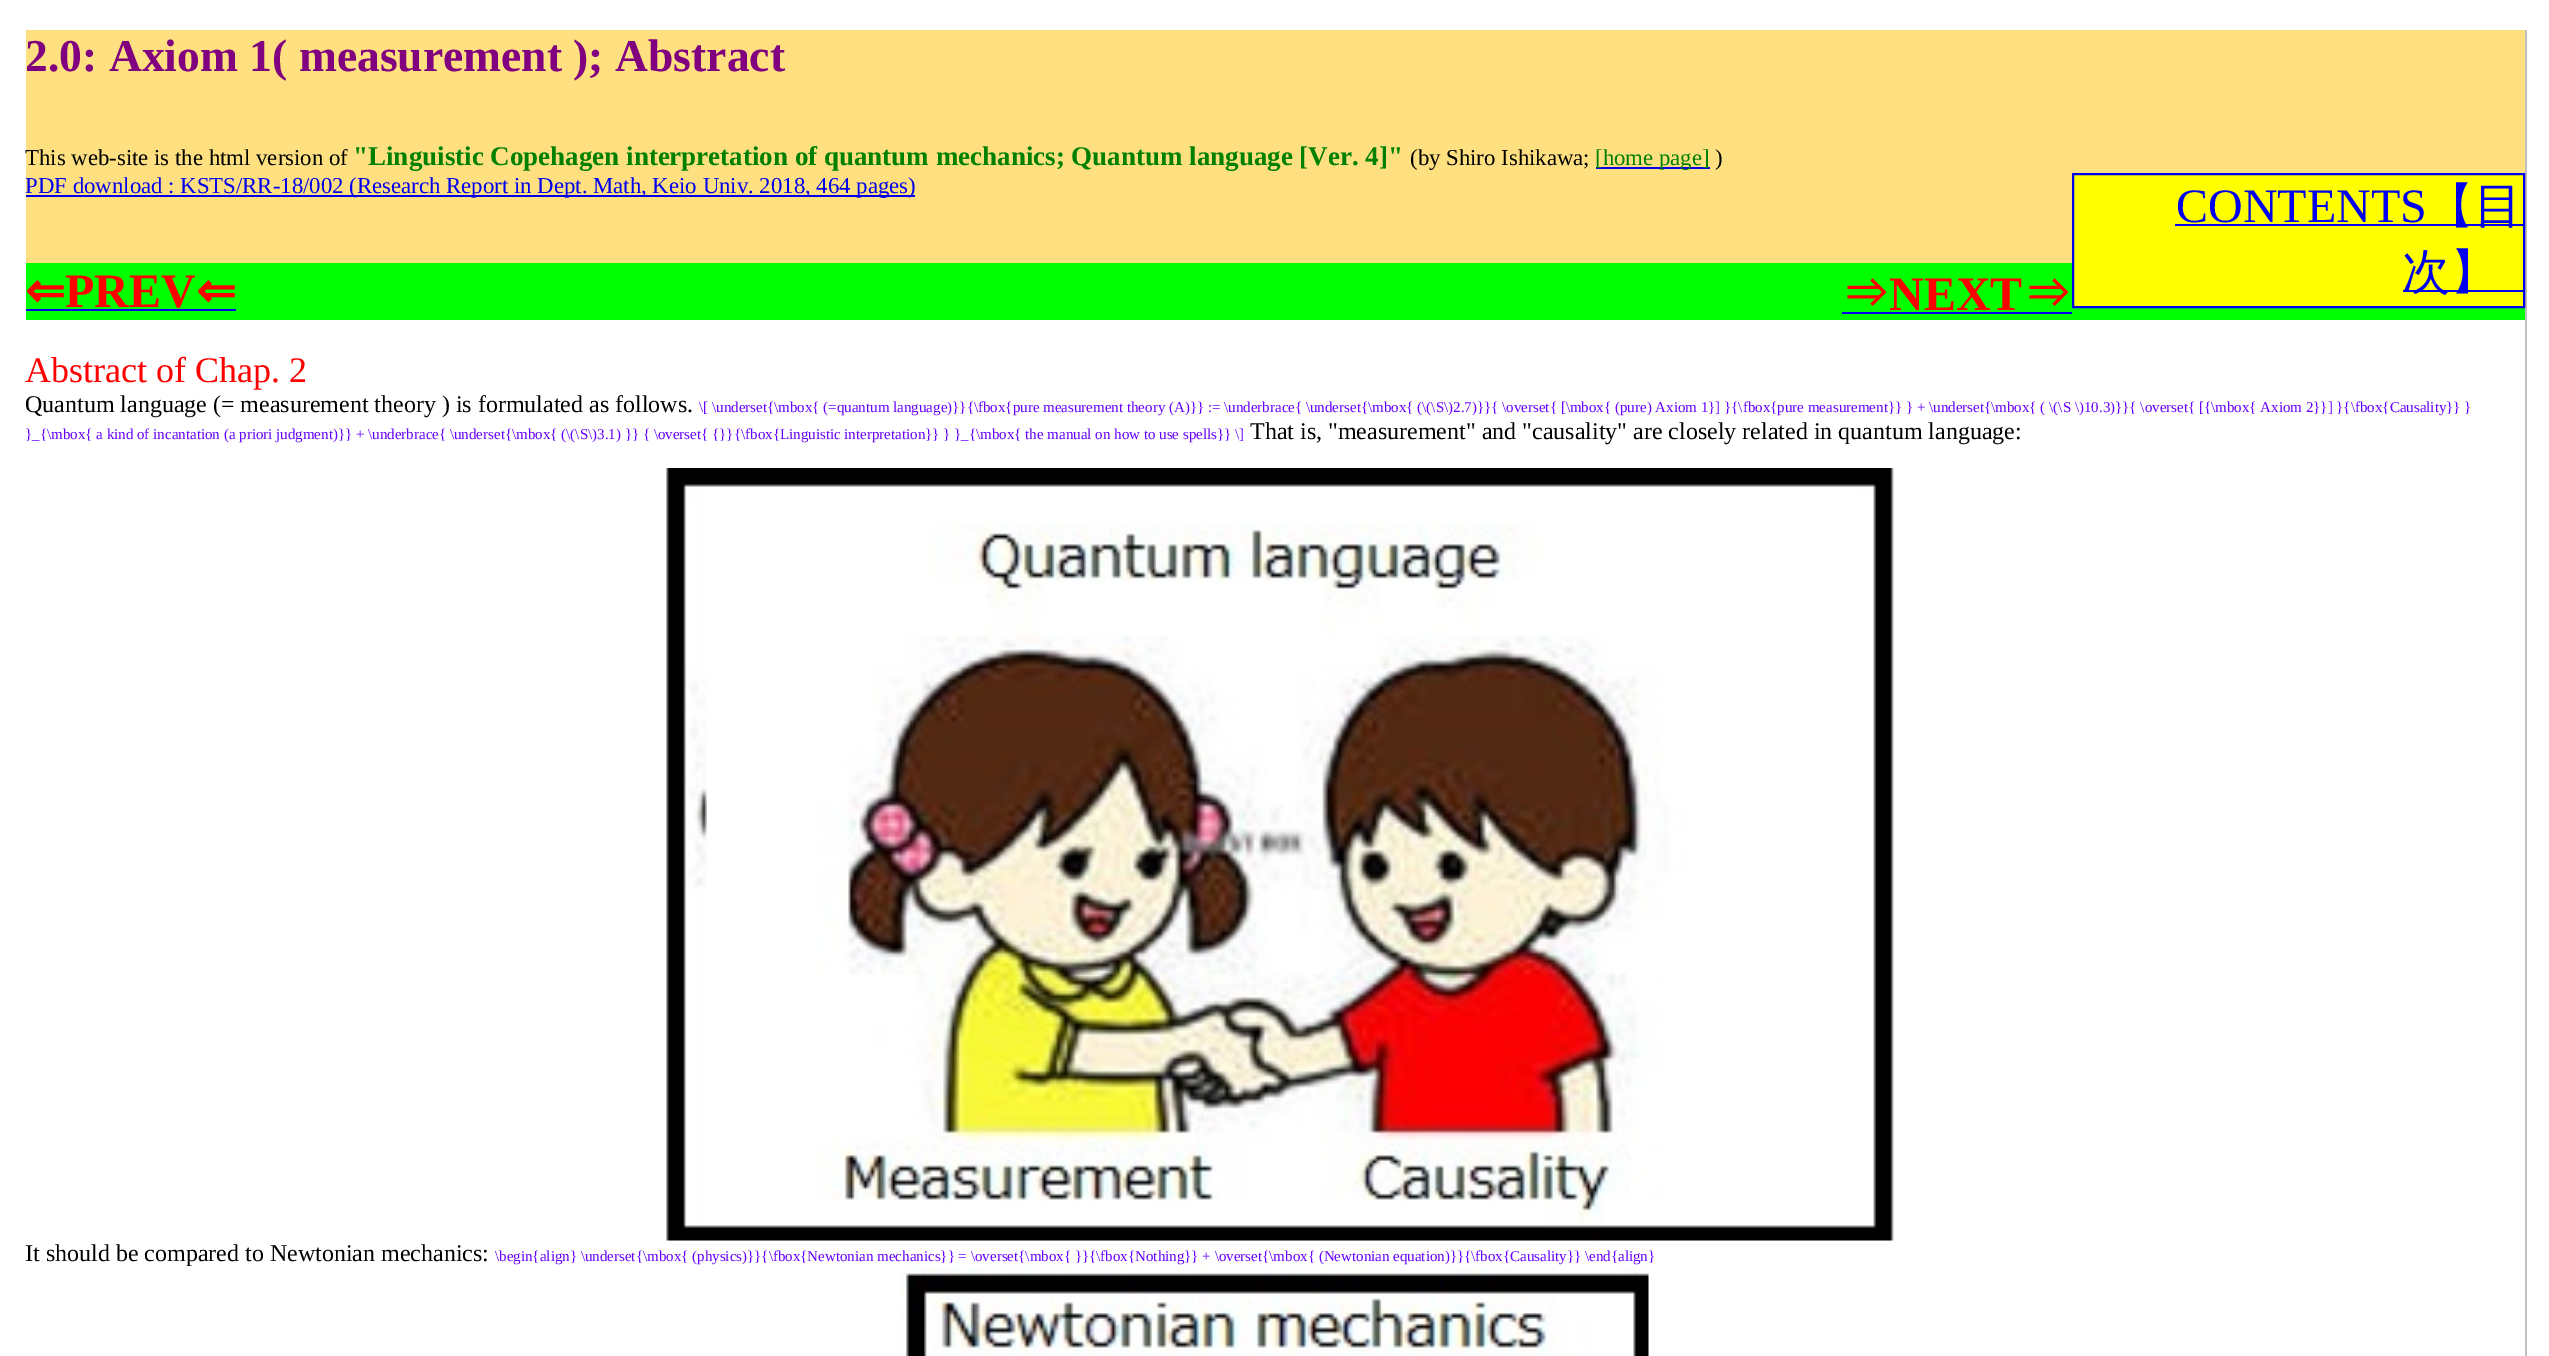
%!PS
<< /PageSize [2549 1356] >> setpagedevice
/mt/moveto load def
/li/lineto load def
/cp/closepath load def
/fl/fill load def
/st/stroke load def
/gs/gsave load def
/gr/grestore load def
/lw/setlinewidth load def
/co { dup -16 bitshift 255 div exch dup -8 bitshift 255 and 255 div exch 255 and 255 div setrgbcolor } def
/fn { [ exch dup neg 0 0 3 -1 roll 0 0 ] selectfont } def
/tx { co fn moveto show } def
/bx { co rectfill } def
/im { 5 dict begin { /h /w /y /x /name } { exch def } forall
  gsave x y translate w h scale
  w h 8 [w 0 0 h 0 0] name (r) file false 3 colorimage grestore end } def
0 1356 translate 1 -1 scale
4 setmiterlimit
0 0 2549 1356 16#FFFFFF bx
2525 30 2 1326 16#C0C0C0 bx
26 30 2499 233 16#FFE080 bx
1596 167 114 2 16#0000EE bx
26 195 889 2 16#0000EE bx
26 263 2499 57 16#00FF00 bx
16#FFFF00 co
2073 174 mt 2524 174 li 2524 307 li 2073 307 li cp gs fl gr
16#0000EE co
2 lw
st
2175 224 348 2 16#0000EE bx
2403 290 120 2 16#0000EE bx
26 309 210 2 16#0000EE bx
1842 312 230 2 16#0000EE bx
(media/1.raw) 666 468 1228 773 im
(media/2.raw) 900 1267 749 89 im
(2.0: Axiom 1\( measurement \); Abstract) 25 71 /LiberationSerif-Bold 45.6 16#800080 tx
(This web-site is the html version of) 25 165 /LiberationSerif-Regular 22.8 16#000000 tx
("Linguistic Copehagen interpretation of quantum mechanics; Quantum language [Ver. 4]") 353 165 /LiberationSerif-Bold 27 16#008000 tx
(\(by Shiro Ishikawa;) 1410 165 /LiberationSerif-Regular 22.8 16#000000 tx
([home page]) 1595 165 /LiberationSerif-Regular 22.8 16#008000 tx
(\)) 1715 165 /LiberationSerif-Regular 22.8 16#000000 tx
(PDF download : KSTS/RR-18/002 \(Research Report in Dept. Math, Keio Univ. 2018, 464 pages\)) 25 193 /LiberationSerif-Regular 22.8 16#0000EE tx
(CONTENTS) 2176 222 /LiberationSerif-Regular 48 16#0000EE tx
(【目) 2426 222 /WenQuanYiZenHei-Medium 48 16#0000EE tx
(次】) 2402 288 /WenQuanYiZenHei-Medium 48 16#0000EE tx
(⇐) 25 307 /DejaVuSans-Bold 48 16#FF0000 tx
(PREV) 65 307 /LiberationSerif-Bold 48 16#FF0000 tx
(⇐) 196 307 /DejaVuSans-Bold 48 16#FF0000 tx
(⇒) 1841 310 /WenQuanYiZenHei-Bold 48 16#FF0000 tx
(NEXT) 1889 310 /LiberationSerif-Bold 48 16#FF0000 tx
(⇒) 2023 310 /WenQuanYiZenHei-Bold 48 16#FF0000 tx
(Abstract of Chap. 2) 25 382 /LiberationSerif-Regular 36 16#FF0000 tx
(Quantum language \(= measurement theory \) is formulated as follows.) 25 412 /LiberationSerif-Regular 24 16#000000 tx
(\\[ \\underset{\\mbox{ \(=quantum language\)}}{\\fbox{pure measurement theory \(A\)}} := \\underbrace{ \\underset{\\mbox{ \(\\\(\\S\\\)2.7\)}}{ \\overset{ [\\mbox{ \(pure\) Axiom 1}] }{\\fbox{pure measurement}} } + \\underset{\\mbox{ \( \\\(\\S \\\)10.3\)}}{ \\overset{ [{\\mbox{ Axiom 2}}] }{\\fbox{Causality}} }) 699 412 /LiberationSerif-Regular 15 16#6600FF tx
(}_{\\mbox{ a kind of incantation \(a priori judgment\)}} + \\underbrace{ \\underset{\\mbox{ \(\\\(\\S\\\)3.1\) }} { \\overset{ {}}{\\fbox{Linguistic interpretation}} } }_{\\mbox{ the manual on how to use spells}} \\]) 25 439 /LiberationSerif-Regular 15 16#6600FF tx
(That is, "measurement" and "causality" are closely related in quantum language:) 1250 439 /LiberationSerif-Regular 24 16#000000 tx
(It should be compared to Newtonian mechanics:) 25 1261 /LiberationSerif-Regular 24 16#000000 tx
(\\begin{align} \\underset{\\mbox{ \(physics\)}}{\\fbox{Newtonian mechanics}} = \\overset{\\mbox{ }}{\\fbox{Nothing}} + \\overset{\\mbox{ \(Newtonian equation\)}}{\\fbox{Causality}} \\end{align}) 495 1261 /LiberationSerif-Regular 15 16#6600FF tx
showpage
